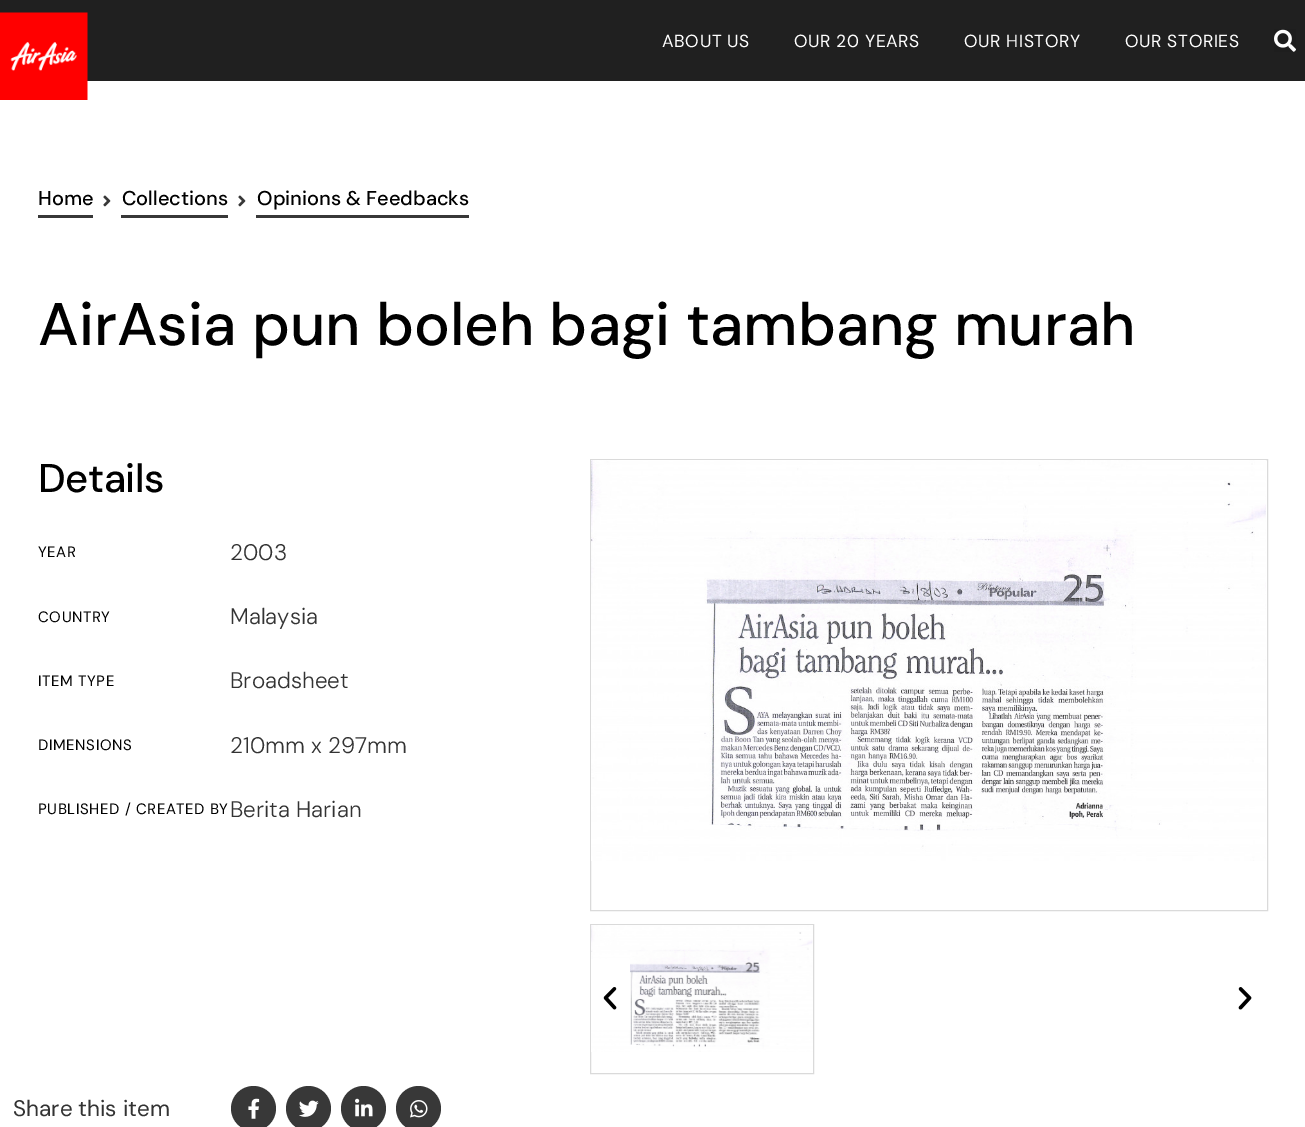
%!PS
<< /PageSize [1305 1127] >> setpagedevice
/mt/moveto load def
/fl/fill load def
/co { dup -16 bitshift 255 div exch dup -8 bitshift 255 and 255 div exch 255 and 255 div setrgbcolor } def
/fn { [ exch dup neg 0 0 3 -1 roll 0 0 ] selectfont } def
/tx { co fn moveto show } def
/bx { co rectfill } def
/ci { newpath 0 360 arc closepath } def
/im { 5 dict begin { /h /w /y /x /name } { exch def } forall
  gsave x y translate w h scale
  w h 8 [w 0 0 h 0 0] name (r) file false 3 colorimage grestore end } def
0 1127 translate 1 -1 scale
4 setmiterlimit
0 0 1305 1127 16#FFFFFF bx
0 0 1305 81 16#202020 bx
(media/1.raw) 0 12 88 88 im
(media/2.raw) 1274 29 22 23 im
38 215 55 3 16#383838 bx
(media/3.raw) 103 195 8 12 im
121 215 107 3 16#383838 bx
(media/3.raw) 238 195 8 12 im
256 215 213 3 16#383838 bx
16#DADADA co
590.5 459.5 677 451 rectstroke
(media/4.raw) 591 460 675 401 im
590.5 924.5 223 149 rectstroke
(media/5.raw) 591 925 222 127 im
591 959 39 71 16#FFFFFF bx
(media/6.raw) 603 987 14 23 im
(media/7.raw) 1238 987 14 23 im
16#383838 co
253.5 1108.5 22.5 ci fl
(media/8.raw) 248 1098 12 21 im
308.5 1108.5 22.5 ci fl
(media/9.raw) 299 1100 20 17 im
363.5 1108.5 22.5 ci fl
(media/10.raw) 355 1098 18 19 im
418.5 1108.5 22.5 ci fl
(media/11.raw) 410 1100 18 18 im
/DMSans-Regular 17.5 fn
16#FFFFFF co
662 47 mt .6 0 (ABOUT US) ashow
794 47 mt .6 0 (OUR 20 YEARS) ashow
964 47 mt .6 0 (OUR HISTORY) ashow
1125 47 mt .6 0 (OUR STORIES) ashow
(Home) 38 205 /DMSans-Medium 20 16#000000 tx
(Collections) 122 205 /DMSans-Medium 20 16#000000 tx
(Opinions & Feedbacks) 257 205 /DMSans-Medium 20 16#000000 tx
(AirAsia pun boleh bagi tambang murah) 38 345 /DMSans-Medium 60 16#000000 tx
/DMSans-Medium 40 fn
38 492 mt -.5 0 (Details) ashow
/DMSans-Regular 15 fn
38 557 mt .6 0 (YEAR) ashow
(2003) 230 560 /DMSans-Light 22.5 16#333333 tx
/DMSans-Regular 15 fn
16#000000 co
38 622 mt .6 0 (COUNTRY) ashow
(Malaysia) 230 624 /DMSans-Light 22.5 16#333333 tx
/DMSans-Regular 15 fn
16#000000 co
38 686 mt .6 0 (ITEM TYPE) ashow
(Broadsheet) 230 688 /DMSans-Light 22.5 16#333333 tx
/DMSans-Regular 15 fn
16#000000 co
38 750 mt .6 0 (DIMENSIONS) ashow
(210mm x 297mm) 230 753 /DMSans-Light 22.5 16#333333 tx
/DMSans-Regular 15 fn
16#000000 co
38 814 mt .6 0 (PUBLISHED / CREATED BY) ashow
(Berita Harian) 230 817 /DMSans-Light 22.5 16#333333 tx
(Share this item) 13 1116 /DMSans-Regular 22.5 16#333333 tx
showpage
